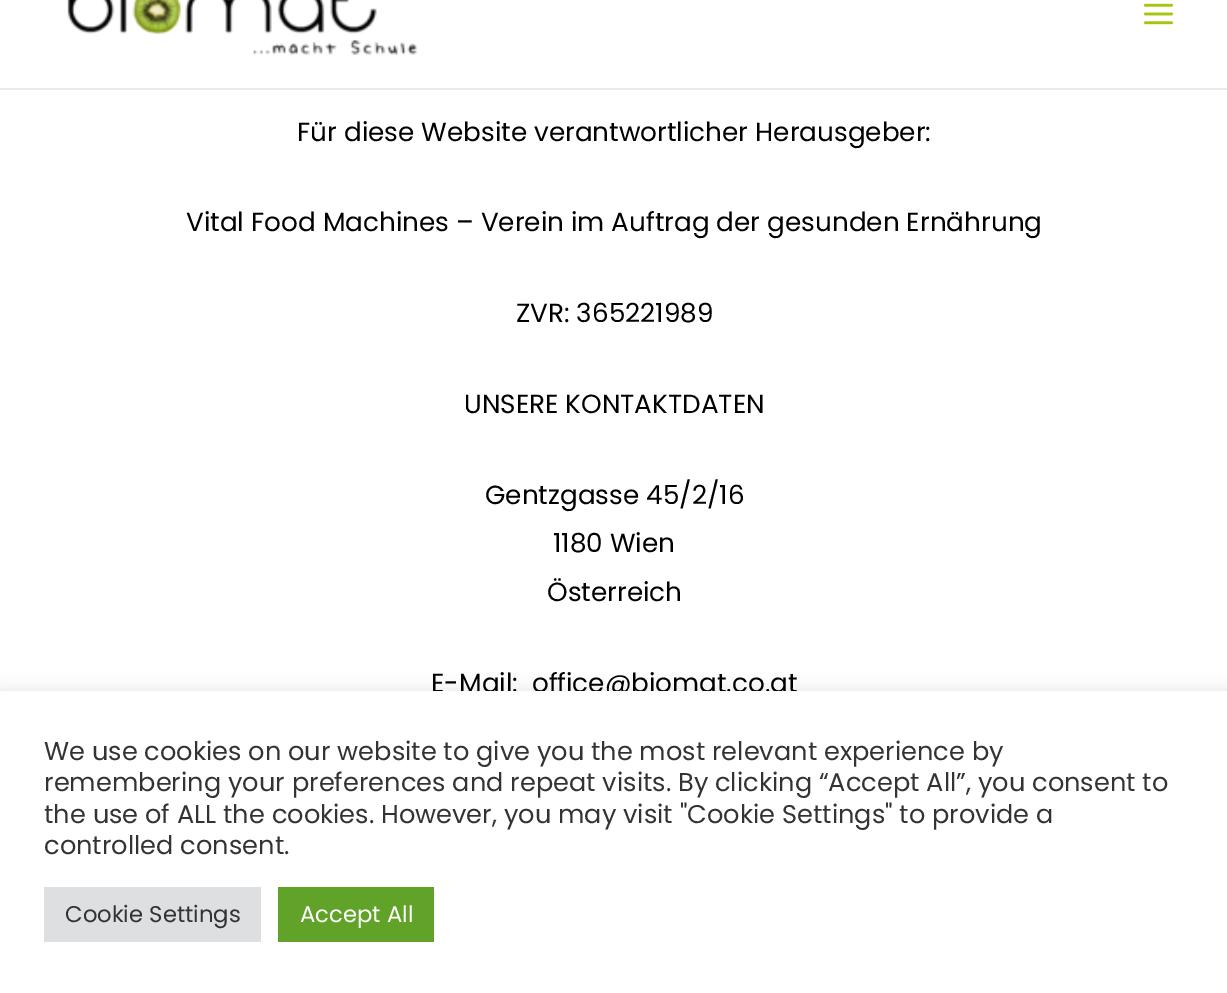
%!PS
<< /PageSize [1227 993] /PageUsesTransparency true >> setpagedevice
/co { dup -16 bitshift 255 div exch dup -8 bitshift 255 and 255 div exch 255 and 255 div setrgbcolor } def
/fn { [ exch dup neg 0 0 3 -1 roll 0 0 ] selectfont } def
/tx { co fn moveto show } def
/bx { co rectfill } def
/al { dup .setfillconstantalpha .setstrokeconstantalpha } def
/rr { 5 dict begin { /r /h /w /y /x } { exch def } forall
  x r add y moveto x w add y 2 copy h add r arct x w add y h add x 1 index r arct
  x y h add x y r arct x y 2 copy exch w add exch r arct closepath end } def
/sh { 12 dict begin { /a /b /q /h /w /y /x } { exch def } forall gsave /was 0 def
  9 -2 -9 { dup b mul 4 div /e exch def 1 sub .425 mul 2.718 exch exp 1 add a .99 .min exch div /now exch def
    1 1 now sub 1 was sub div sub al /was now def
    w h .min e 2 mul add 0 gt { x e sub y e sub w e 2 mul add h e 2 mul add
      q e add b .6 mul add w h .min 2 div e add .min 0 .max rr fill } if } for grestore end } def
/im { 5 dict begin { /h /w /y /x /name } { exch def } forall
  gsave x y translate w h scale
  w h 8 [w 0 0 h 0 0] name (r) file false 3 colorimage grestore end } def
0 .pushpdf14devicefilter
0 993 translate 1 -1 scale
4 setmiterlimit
0 0 1227 993 16#FFFFFF bx
0 88 1227 2 16#EAEAEA bx
(media/1.raw) 67 0 350 55 im
(media/2.raw) 1143 3 31 22 im
16#ACABAB co
0 690 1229 302 0 9 .3 sh
(Für diese Website verantwortlicher Herausgeber:) 297 141 /Poppins-Regular 26.25 16#000000 tx
(Vital Food Machines – Verein im Auftrag der gesunden Ernährung) 186 231 /Poppins-Regular 26.25 16#000000 tx
(ZVR: 365221989) 516 322 /Poppins-Regular 26.25 16#000000 tx
(UNSERE KONTAKTDATEN) 464 413 /Poppins-Regular 26.25 16#000000 tx
(Gentzgasse 45/2/16) 485 504 /Poppins-Regular 26.25 16#000000 tx
(1180 Wien) 553 552 /Poppins-Regular 26.25 16#000000 tx
(Österreich) 547 601 /Poppins-Regular 26.25 16#000000 tx
(E-Mail:  office@biomat.co.at) 431 692 /Poppins-Regular 26.25 16#000000 tx
0 691 1227 302 16#FFFFFF bx
(We use cookies on our website to give you the most relevant experience by) 44 760 /Poppins-Regular 25.65 16#333333 tx
(remembering your preferences and repeat visits. By clicking “Accept All”, you consent to) 44 791 /Poppins-Regular 25.65 16#333333 tx
(the use of ALL the cookies. However, you may visit "Cookie Settings" to provide a) 44 823 /Poppins-Regular 25.65 16#333333 tx
(controlled consent.) 44 854 /Poppins-Regular 25.65 16#333333 tx
44 887 217 55 16#DEDFE0 bx
(Cookie Settings) 65 922 /Poppins-Regular 22.75 16#333333 tx
278 887 156 55 16#61A229 bx
(Accept All) 300 922 /Poppins-Regular 22.75 16#FFFFFF tx
.poppdf14devicefilter showpage
